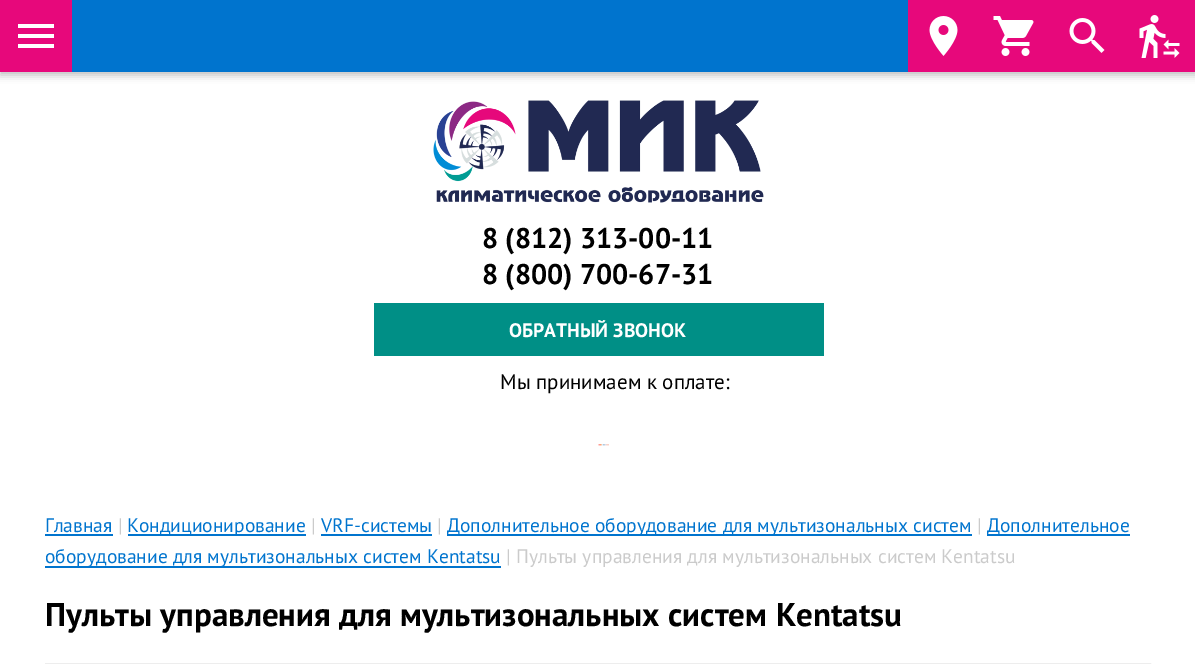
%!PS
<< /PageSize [1195 664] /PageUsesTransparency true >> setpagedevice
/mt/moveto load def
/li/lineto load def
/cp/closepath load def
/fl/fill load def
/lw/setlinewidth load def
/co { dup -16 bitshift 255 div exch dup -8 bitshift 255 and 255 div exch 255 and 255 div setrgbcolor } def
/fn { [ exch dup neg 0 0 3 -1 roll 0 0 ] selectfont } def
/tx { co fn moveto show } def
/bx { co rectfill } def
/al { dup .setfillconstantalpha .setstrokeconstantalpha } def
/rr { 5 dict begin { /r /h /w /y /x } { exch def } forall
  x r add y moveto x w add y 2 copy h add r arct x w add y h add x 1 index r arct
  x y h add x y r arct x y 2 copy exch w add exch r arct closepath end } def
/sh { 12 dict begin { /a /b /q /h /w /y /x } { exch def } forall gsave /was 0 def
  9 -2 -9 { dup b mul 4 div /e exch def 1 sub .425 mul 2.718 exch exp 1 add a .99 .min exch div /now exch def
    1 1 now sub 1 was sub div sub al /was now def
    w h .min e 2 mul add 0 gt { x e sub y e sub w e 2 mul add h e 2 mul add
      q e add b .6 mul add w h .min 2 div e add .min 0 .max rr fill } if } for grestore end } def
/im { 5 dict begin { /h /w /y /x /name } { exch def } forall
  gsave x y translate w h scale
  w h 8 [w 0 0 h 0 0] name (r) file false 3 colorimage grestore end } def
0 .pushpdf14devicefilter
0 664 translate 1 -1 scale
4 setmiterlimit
0 0 1195 664 16#FFFFFF bx
16#000000 co
0 3 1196 72 0 4 .26 sh
72 0 836 72 16#0074CE bx
0 0 72 72 16#E7087B bx
16#FFFFFF co
18 48 mt 54 48 li 54 44 li 18 44 li cp 18 38 mt 54 38 li 54 34 li 18 34 li cp 18 24 mt 18 28 li 54 28 li 54 24 li cp fl
908 0 287 72 16#E7087B bx
(media/1.raw) 929 16 29 40 im
(media/2.raw) 993 16 41 40 im
(media/3.raw) 1069 18 36 35 im
(media/4.raw) 1139 15 41 43 im
(media/5.raw) 433 100 331 103 im
374 303 450 53 16#008F86 bx
(media/6.raw) 598 444 11 2 im
45 534 68 2 16#0074CE bx
128 534 178 2 16#0074CE bx
321 534 111 2 16#0074CE bx
447 534 525 2 16#0074CE bx
987 534 143 2 16#0074CE bx
45 566 456 2 16#0074CE bx
16#EDEDED co
2 lw
46 664 1104 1 rectstroke
(8 \(812\) 313-00-11) 482 248 /PTSans-Bold 28.5 16#000000 tx
(8 \(800\) 700‑67-31) 482 284 /PTSans-Bold 28.5 16#000000 tx
(ОБРАТНЫЙ ЗВОНОК) 509 337 /PTSans-Bold 19.5 16#FFFFFF tx
(Мы принимаем к оплате:) 500 389 /PTSans-Regular 21 16#000000 tx
(Главная) 45 532 /PTSans-Regular 19.5 16#0074CE tx
(|) 118 532 /PTSans-Regular 19.5 16#CBCBCB tx
(Кондиционирование) 127 532 /PTSans-Regular 19.5 16#0074CE tx
(|) 311 532 /PTSans-Regular 19.5 16#CBCBCB tx
(VRF-системы) 321 532 /PTSans-Regular 19.5 16#0074CE tx
(|) 437 532 /PTSans-Regular 19.5 16#CBCBCB tx
(Дополнительное оборудование для мультизональных систем) 447 532 /PTSans-Regular 19.5 16#0074CE tx
(|) 977 532 /PTSans-Regular 19.5 16#CBCBCB tx
(Дополнительное) 987 532 /PTSans-Regular 19.5 16#0074CE tx
(оборудование для мультизональных систем Kentatsu) 45 563 /PTSans-Regular 19.5 16#0074CE tx
(| Пульты управления для мультизональных систем Kentatsu) 506 563 /PTSans-Regular 19.5 16#CBCBCB tx
(Пульты управления для мультизональных систем Kentatsu) 45 626 /PTSans-Bold 33 16#000000 tx
.poppdf14devicefilter showpage
